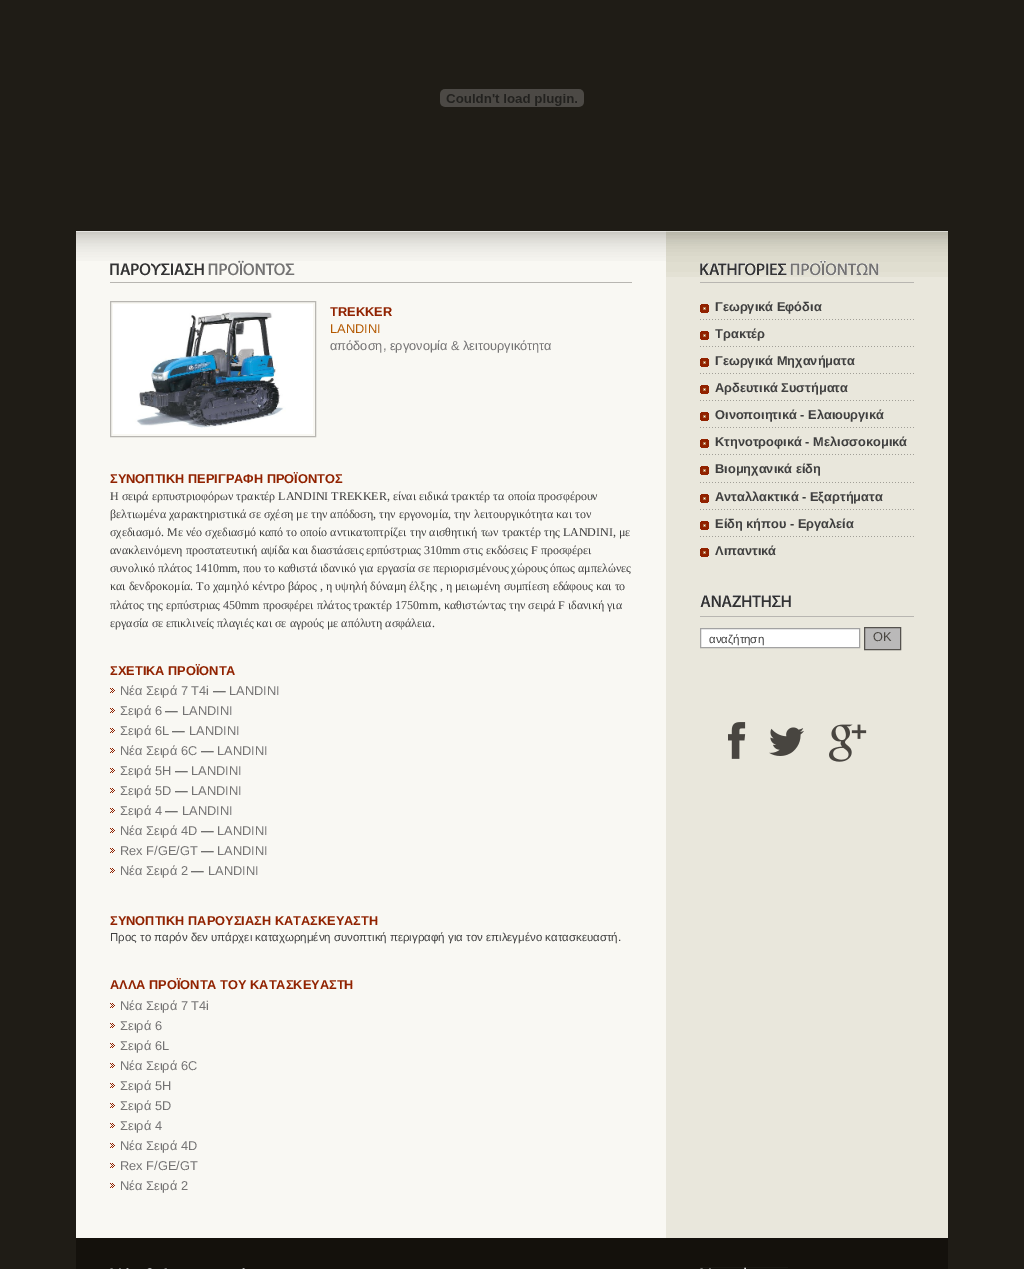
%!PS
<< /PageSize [1024 1269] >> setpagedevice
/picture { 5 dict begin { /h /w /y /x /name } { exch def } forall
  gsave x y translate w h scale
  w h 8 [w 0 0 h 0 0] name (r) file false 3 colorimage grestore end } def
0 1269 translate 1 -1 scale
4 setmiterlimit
0.122 0.11 0.086 setrgbcolor
0 0 1024 1269 rectfill
(img1.rgb) 440 89 144 18 picture
0.976 0.973 0.953 setrgbcolor
76 261 590 977 rectfill
(img2.rgb) 76 231 590 30 picture
0.722 0.714 0.694 setrgbcolor
110 282 522 1 rectfill
(img3.rgb) 110 260 185 16 picture
110.5 301.5 205 135 rectstroke
(img4.rgb) 113 304 200 130 picture
/LiberationSans-Bold [12.8 0 0 -12.8 0 0] selectfont
0.569 0.133 0 setrgbcolor
330 316 moveto (TREKKER) show
/LiberationSans-Regular [12.8 0 0 -12.8 0 0] selectfont
0.706 0.349 0 setrgbcolor
330 333 moveto (LANDINI) show
0.455 0.451 0.451 setrgbcolor
330 350 moveto (απόδοση, εργονομία & λειτουργικότητα) show
/LiberationSans-Bold [12.8 0 0 -12.8 0 0] selectfont
0.569 0.133 0 setrgbcolor
110 483 moveto (ΣΥΝΟΠΤΙΚΗ ΠΕΡΙΓΡΑΦΗ ΠΡΟΪΟΝΤΟΣ) show
/LiberationSerif-Regular [12 0 0 -12 0 0] selectfont
0.247 setgray
110 500 moveto (Η σειρά ερπυστριοφόρων τρακτέρ LANDINI TREKKER, είναι ειδικά τρακτέρ τα οποία προσφέρουν) show
110 518 moveto (βελτιωμένα χαρακτηριστικά σε σχέση με την απόδοση, την εργονομία, την λειτουργικότητα και τον) show
110 536 moveto (σχεδιασμό. Με νέο σχεδιασμό καπό το οποίο αντικατοπτρίζει την αισθητική των τρακτέρ της LANDINI, με) show
110 554 moveto (ανακλεινόμενη προστατευτική αψίδα και διαστάσεις ερπύστριας 310mm στις εκδόσεις F προσφέρει) show
110 572 moveto (συνολικό πλάτος 1410mm, που το καθιστά ιδανικό για εργασία σε περιορισμένους χώρους όπως αμπελώνες) show
110 590 moveto (και δενδροκομία. Το χαμηλό κέντρο βάρος , η υψηλή δύναμη έλξης , η μειωμένη συμπίεση εδάφους και το) show
110 609 moveto (πλάτος της ερπύστριας 450mm προσφέρει πλάτος τρακτέρ 1750mm, καθιστώντας την σειρά F ιδανική για) show
110 627 moveto (εργασία σε επικλινείς πλαγιές και σε αγρούς με απόλυτη ασφάλεια.) show
/LiberationSans-Bold [12.8 0 0 -12.8 0 0] selectfont
0.569 0.133 0 setrgbcolor
110 675 moveto (ΣΧΕΤΙΚΑ ΠΡΟΪΟΝΤΑ) show
(img5.rgb) 110 688 5 5 picture
/LiberationSans-Regular [12.8 0 0 -12.8 0 0] selectfont
0.455 0.451 0.451 setrgbcolor
120 695 moveto (Νέα Σειρά 7 T4i) show
0.247 setgray
213 695 moveto (—) show
0.455 0.451 0.451 setrgbcolor
229 695 moveto (LANDINI) show
(img5.rgb) 110 708 5 5 picture
120 715 moveto (Σειρά 6) show
0.247 setgray
165 715 moveto (—) show
0.455 0.451 0.451 setrgbcolor
182 715 moveto (LANDINI) show
(img5.rgb) 110 728 5 5 picture
120 735 moveto (Σειρά 6L) show
0.247 setgray
172 735 moveto (—) show
0.455 0.451 0.451 setrgbcolor
189 735 moveto (LANDINI) show
(img5.rgb) 110 748 5 5 picture
120 755 moveto (Νέα Σειρά 6C) show
0.247 setgray
201 755 moveto (—) show
0.455 0.451 0.451 setrgbcolor
217 755 moveto (LANDINI) show
(img5.rgb) 110 768 5 5 picture
120 775 moveto (Σειρά 5H) show
0.247 setgray
175 775 moveto (—) show
0.455 0.451 0.451 setrgbcolor
191 775 moveto (LANDINI) show
(img5.rgb) 110 788 5 5 picture
120 795 moveto (Σειρά 5D) show
0.247 setgray
175 795 moveto (—) show
0.455 0.451 0.451 setrgbcolor
191 795 moveto (LANDINI) show
(img5.rgb) 110 808 5 5 picture
120 815 moveto (Σειρά 4) show
0.247 setgray
165 815 moveto (—) show
0.455 0.451 0.451 setrgbcolor
182 815 moveto (LANDINI) show
(img5.rgb) 110 828 5 5 picture
120 835 moveto (Νέα Σειρά 4D) show
0.247 setgray
201 835 moveto (—) show
0.455 0.451 0.451 setrgbcolor
217 835 moveto (LANDINI) show
(img5.rgb) 110 848 5 5 picture
120 855 moveto (Rex F/GE/GT) show
0.247 setgray
201 855 moveto (—) show
0.455 0.451 0.451 setrgbcolor
217 855 moveto (LANDINI) show
(img5.rgb) 110 868 5 5 picture
120 875 moveto (Νέα Σειρά 2) show
0.247 setgray
191 875 moveto (—) show
0.455 0.451 0.451 setrgbcolor
208 875 moveto (LANDINI) show
/LiberationSans-Bold [12.8 0 0 -12.8 0 0] selectfont
0.569 0.133 0 setrgbcolor
110 925 moveto (ΣΥΝΟΠΤΙΚΗ ΠΑΡΟΥΣΙΑΣΗ ΚΑΤΑΣΚΕΥΑΣΤΗ) show
/LiberationSans-Regular [11.5 0 0 -11.5 0 0] selectfont
0.247 setgray
110 941 moveto (Προς το παρόν δεν υπάρχει καταχωρημένη συνοπτική περιγραφή για τον επιλεγμένο κατασκευαστή.) show
/LiberationSans-Bold [12.8 0 0 -12.8 0 0] selectfont
0.569 0.133 0 setrgbcolor
110 989 moveto (ΑΛΛΑ ΠΡΟΪΟΝΤΑ ΤΟΥ ΚΑΤΑΣΚΕΥΑΣΤΗ) show
(img5.rgb) 110 1003 5 5 picture
/LiberationSans-Regular [12.8 0 0 -12.8 0 0] selectfont
0.455 0.451 0.451 setrgbcolor
120 1010 moveto (Νέα Σειρά 7 T4i) show
(img5.rgb) 110 1023 5 5 picture
120 1030 moveto (Σειρά 6) show
(img5.rgb) 110 1043 5 5 picture
120 1050 moveto (Σειρά 6L) show
(img5.rgb) 110 1063 5 5 picture
120 1070 moveto (Νέα Σειρά 6C) show
(img5.rgb) 110 1083 5 5 picture
120 1090 moveto (Σειρά 5H) show
(img5.rgb) 110 1103 5 5 picture
120 1110 moveto (Σειρά 5D) show
(img5.rgb) 110 1123 5 5 picture
120 1130 moveto (Σειρά 4) show
(img5.rgb) 110 1143 5 5 picture
120 1150 moveto (Νέα Σειρά 4D) show
(img5.rgb) 110 1163 5 5 picture
120 1170 moveto (Rex F/GE/GT) show
(img5.rgb) 110 1183 5 5 picture
120 1190 moveto (Νέα Σειρά 2) show
0.914 0.906 0.863 setrgbcolor
666 277 282 961 rectfill
(img6.rgb) 666 231 282 46 picture
0.722 0.714 0.694 setrgbcolor
700 282 214 1 rectfill
(img7.rgb) 700 260 179 16 picture
(img8.rgb) 700 319 214 1 picture
(img9.rgb) 700 304 9 9 picture
/LiberationSans-Bold [12.8 0 0 -12.8 0 0] selectfont
0.247 setgray
715 311 moveto (Γεωργικά Εφόδια) show
(img8.rgb) 700 346 214 1 picture
(img9.rgb) 700 331 9 9 picture
715 338 moveto (Τρακτέρ) show
(img8.rgb) 700 373 214 1 picture
(img9.rgb) 700 358 9 9 picture
715 365 moveto (Γεωργικά Μηχανήματα) show
(img8.rgb) 700 400 214 1 picture
(img9.rgb) 700 385 9 9 picture
715 392 moveto (Αρδευτικά Συστήματα) show
(img8.rgb) 700 427 214 1 picture
(img9.rgb) 700 412 9 9 picture
715 419 moveto (Οινοποιητικά - Ελαιουργικά) show
(img8.rgb) 700 454 214 1 picture
(img9.rgb) 700 439 9 9 picture
715 446 moveto (Κτηνοτροφικά - Μελισσοκομικά) show
(img8.rgb) 700 482 214 1 picture
(img9.rgb) 700 466 9 9 picture
715 473 moveto (Βιομηχανικά είδη) show
(img8.rgb) 700 509 214 1 picture
(img9.rgb) 700 494 9 9 picture
715 501 moveto (Ανταλλακτικά - Εξαρτήματα) show
(img8.rgb) 700 536 214 1 picture
(img9.rgb) 700 521 9 9 picture
715 528 moveto (Είδη κήπου - Εργαλεία) show
(img9.rgb) 700 548 9 9 picture
715 555 moveto (Λιπαντικά) show
0.722 0.714 0.694 setrgbcolor
700 616 214 1 rectfill
(img10.rgb) 700 595 91 12 picture
1 setgray
newpath 700.5 628.5 moveto 859.5 628.5 lineto 859.5 647.5 lineto 700.5 647.5 lineto closepath gsave fill grestore
0.635 setgray
stroke
/LiberationSans-Regular [11.5 0 0 -11.5 0 0] selectfont
0.247 setgray
709 643 moveto (αναζήτηση) show
0.729 0.725 0.725 setrgbcolor
newpath 864.5 627.5 moveto 900.5 627.5 lineto 900.5 649.5 lineto 864.5 649.5 lineto closepath gsave fill grestore
0.333 0.322 0.306 setrgbcolor
stroke
/LiberationSans-Regular [12.8 0 0 -12.8 0 0] selectfont
0.282 0.271 0.251 setrgbcolor
873 641 moveto (OK) show
(img11.rgb) 728 722 18 37 picture
(img12.rgb) 769 727 35 29 picture
(img13.rgb) 829 724 38 38 picture
0.078 0.067 0.047 setrgbcolor
76 1238 872 31 rectfill
(img14.rgb) 110 1268 135 1 picture
(img15.rgb) 700 1267 88 2 picture
showpage
